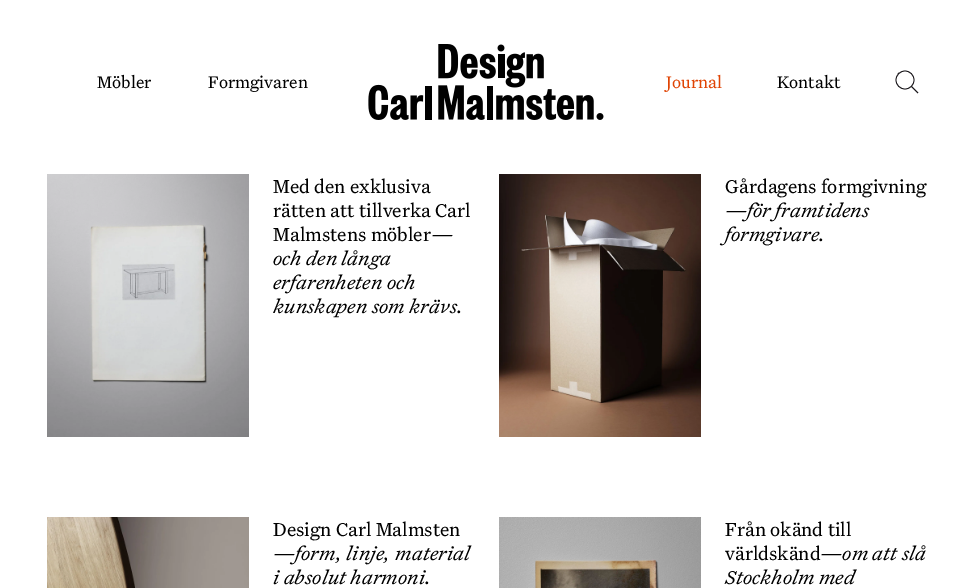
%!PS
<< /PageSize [974 588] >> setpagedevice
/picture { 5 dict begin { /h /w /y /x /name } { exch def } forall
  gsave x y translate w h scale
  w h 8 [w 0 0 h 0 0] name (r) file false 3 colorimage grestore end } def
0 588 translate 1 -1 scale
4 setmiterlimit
1 setgray
0 0 974 588 rectfill
/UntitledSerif-Regular [18 0 0 -18 0 0] selectfont
0 setgray
97 88 moveto (Möbler) show
208 88 moveto (Formgivaren) show
(img1.rgb) 368 44 236 76 picture
0.878 0.267 0.016 setrgbcolor
666 88 moveto (Journal) show
0 setgray
777 88 moveto (Kontakt) show
0.102 0.09 0.106 setrgbcolor
0.8 setlinewidth
newpath 918 93 moveto 898 73 lineto stroke
1 setgray
newpath 905 80 9 0 360 arc closepath gsave fill grestore
0.102 0.09 0.106 setrgbcolor
stroke
(img2.rgb) 47 174 202 263 picture
/UntitledSerif-Regular [20 0 0 -20 0 0] selectfont
0 setgray
273 193 moveto (Med den exklusiva) show
273 217 moveto (rätten att tillverka Carl) show
273 241 moveto (Malmstens möbler) show
/UntitledSerif-Italic [20 0 0 -20 0 0] selectfont
431 241 moveto (—) show
273 265 moveto (och den långa) show
273 289 moveto (erfarenheten och) show
273 313 moveto (kunskapen som krävs.) show
(img3.rgb) 499 174 202 263 picture
/UntitledSerif-Regular [20 0 0 -20 0 0] selectfont
725 193 moveto (Gårdagens formgivning) show
/UntitledSerif-Italic [20 0 0 -20 0 0] selectfont
725 217 moveto (—för framtidens) show
725 241 moveto (formgivare.) show
(img4.rgb) 47 517 202 71 picture
/UntitledSerif-Regular [20 0 0 -20 0 0] selectfont
273 536 moveto (Design Carl Malmsten) show
/UntitledSerif-Italic [20 0 0 -20 0 0] selectfont
273 560 moveto (—form, linje, material) show
273 584 moveto (i absolut harmoni.) show
(img5.rgb) 499 517 202 71 picture
/UntitledSerif-Regular [20 0 0 -20 0 0] selectfont
725 536 moveto (Från okänd till) show
725 560 moveto (världskänd) show
/UntitledSerif-Italic [20 0 0 -20 0 0] selectfont
820 560 moveto (—om att slå) show
725 584 moveto (Stockholm med) show
showpage
